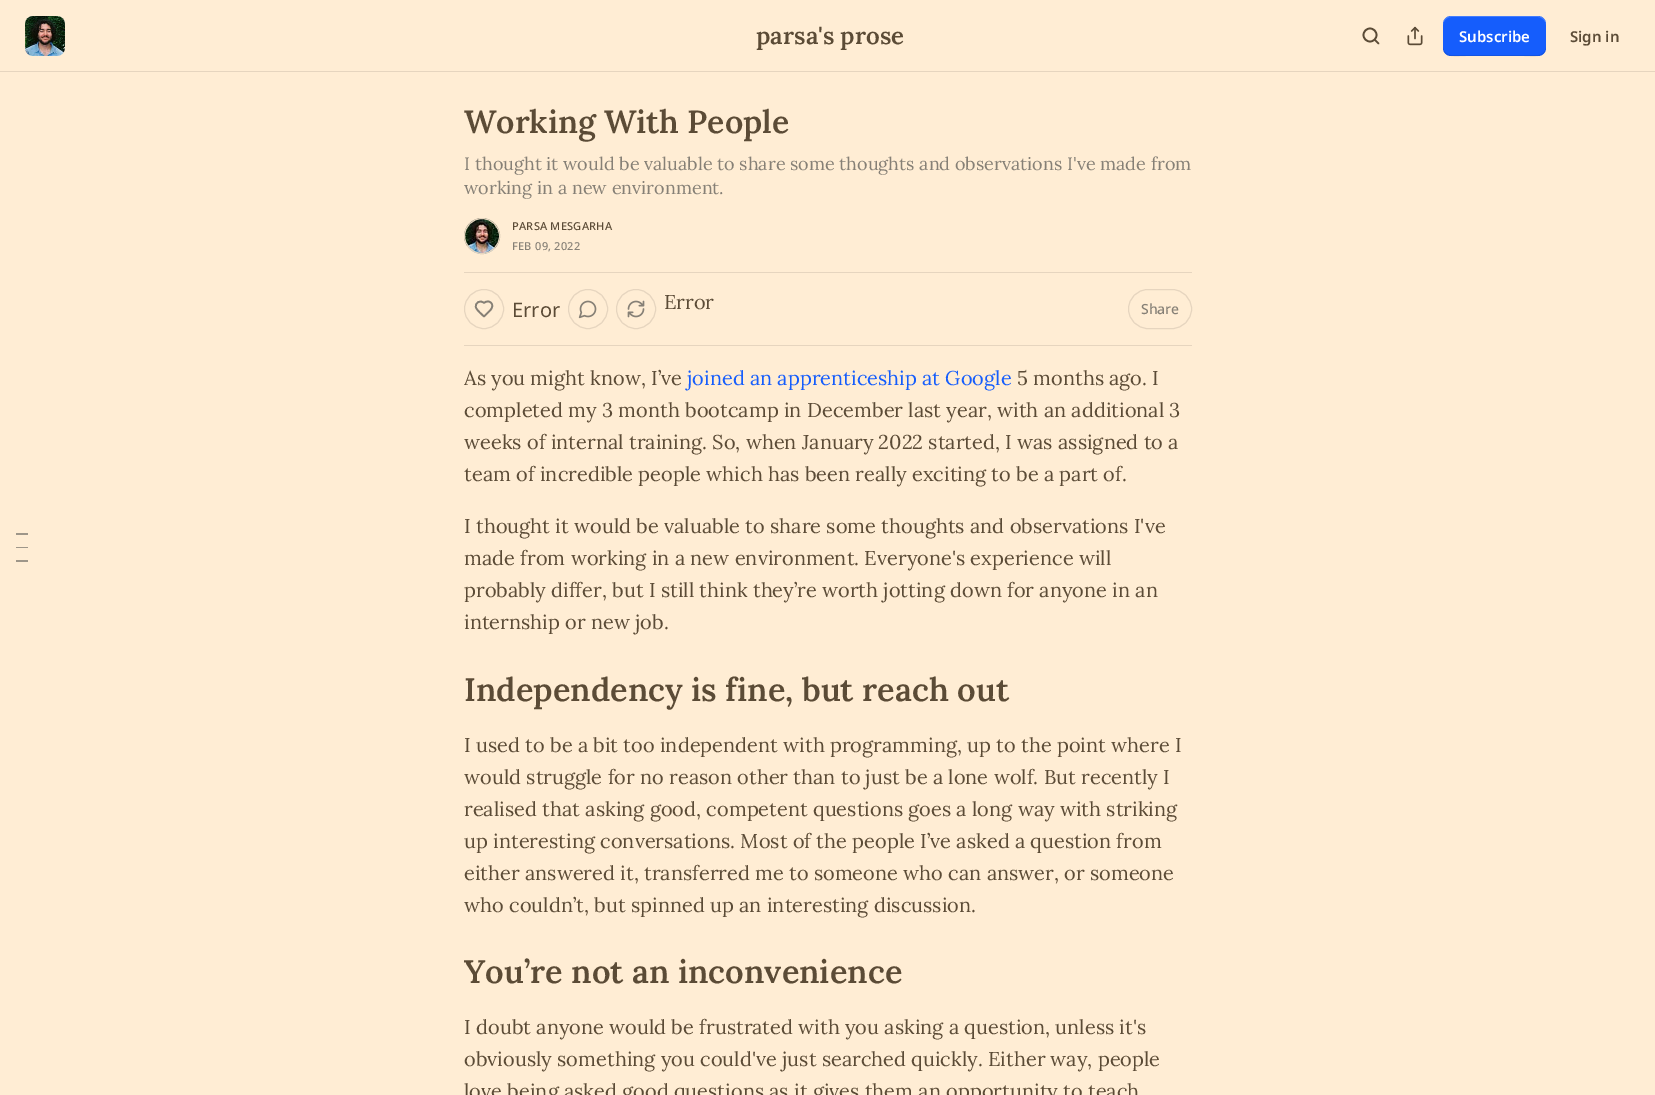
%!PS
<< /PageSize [1655 1095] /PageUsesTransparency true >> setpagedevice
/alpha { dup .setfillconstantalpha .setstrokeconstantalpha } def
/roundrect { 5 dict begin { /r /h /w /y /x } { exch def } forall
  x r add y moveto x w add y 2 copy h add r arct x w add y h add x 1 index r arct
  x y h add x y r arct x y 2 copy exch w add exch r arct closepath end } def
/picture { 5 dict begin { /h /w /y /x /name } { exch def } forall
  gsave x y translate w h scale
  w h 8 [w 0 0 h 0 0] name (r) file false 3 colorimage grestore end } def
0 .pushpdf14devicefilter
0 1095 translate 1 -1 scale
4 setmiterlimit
1 0.929 0.831 setrgbcolor
0 0 1655 1095 rectfill
0.902 0.835 0.749 setrgbcolor
0 71 1655 1 rectfill
1 setgray
25 16 40 40 8 roundrect fill
(img1.rgb) 25 16 40 40 picture
/Lora-SemiBold [24 0 0 -24 0 0] selectfont
0.357 0.294 0.212 setrgbcolor
756 44 moveto (parsa's prose) show
1.7 setlinewidth
newpath 1370 35 6.5 0 360 arc closepath stroke
1 setlinecap
1 setlinejoin
newpath 1378.5 43.5 moveto 1375 40 lineto stroke
(img2.rgb) 1407 26 16 20 picture
0.082 0.365 0.988 setrgbcolor
1443 16 103 40 8 roundrect fill
0.1 alpha
0 setgray
newpath 1443 47 moveto 1443 59 1457 56 1466 56 curveto 1524 56 lineto 1532 56 1546 59 1546 47 curveto 1546 51 1542 55 1538 55 curveto 1451 55 lineto 1447 55 1443 51 1443 47 curveto closepath fill
0.2 alpha
1 setgray
newpath 1451 17 moveto 1538 17 lineto 1542 17 1546 21 1546 25 curveto 1546 13 1532 16 1524 16 curveto 1466 16 lineto 1457 16 1443 13 1443 25 curveto 1443 21 1447 17 1451 17 curveto closepath fill
/NotoSans-SemiBold [15 0 0 -15 0 0] selectfont
1 alpha
1459 42 moveto (Subscribe) show
0.357 0.294 0.212 setrgbcolor
1570 42 moveto (Sign in) show
/Lora-SemiBold [32 0 0 -32 0 0] selectfont
464 133 moveto (Working With People) show
/Lora-Regular [18 0 0 -18 0 0] selectfont
0.525 0.502 0.463 setrgbcolor
464 170 moveto (I thought it would be valuable to share some thoughts and observations I've made from) show
464 194 moveto (working in a new environment.) show
0.902 0.835 0.749 setrgbcolor
1 setlinewidth
0 setlinecap
0 setlinejoin
newpath 482 236 17.5 0 360 arc closepath stroke
(img3.rgb) 464 218 36 36 picture
newpath 482 236 17.5 0 360 arc closepath stroke
/NotoSans-Medium [11 0 0 -11 0 0] selectfont
0.357 0.294 0.212 setrgbcolor
512 230 moveto 0.25 0 (PARSA MESGARHA) ashow
0.525 0.502 0.463 setrgbcolor
512 250 moveto 0.25 0 (FEB 09, 2022) ashow
0.902 0.835 0.749 setrgbcolor
464 272 728 1 rectfill
464 345 728 1 rectfill
newpath 484 309 19.5 0 360 arc closepath stroke
0.525 0.502 0.463 setrgbcolor
1.7 setlinewidth
1 setlinecap
1 setlinejoin
newpath 490 310.5 moveto 496 304.5 489 298.5 484 303 curveto 480.5 299.5 474.5 302.5 476 307.5 curveto 477 310.5 482 314.5 484 316.5 curveto closepath stroke
/NotoSans-Regular [20 0 0 -20 0 0] selectfont
0.357 0.294 0.212 setrgbcolor
512 317 moveto (Error) show
0.902 0.835 0.749 setrgbcolor
1 setlinewidth
0 setlinecap
0 setlinejoin
newpath 588 309 19.5 0 360 arc closepath stroke
(img4.rgb) 578 300 19 19 picture
newpath 636 309 19.5 0 360 arc closepath stroke
(img5.rgb) 627 300 18 18 picture
/Lora-Regular [20 0 0 -20 0 0] selectfont
0.357 0.294 0.212 setrgbcolor
664 309 moveto (Error) show
0.902 0.835 0.749 setrgbcolor
1128.5 289.5 63 39 19.5 roundrect stroke
/NotoSans-Medium [14 0 0 -14 0 0] selectfont
0.525 0.502 0.463 setrgbcolor
1141 314 moveto (Share) show
0.62 0.588 0.537 setrgbcolor
16 533 12 2 rectfill
16 547 12 1 rectfill
16 560 12 2 rectfill
/Lora-Regular [20 0 0 -20 0 0] selectfont
0.357 0.294 0.212 setrgbcolor
464 385 moveto (As you might know, I’ve) show
0.082 0.365 0.988 setrgbcolor
687 385 moveto (joined an apprenticeship at Google) show
0.357 0.294 0.212 setrgbcolor
1017 385 moveto (5 months ago. I) show
464 417 moveto (completed my 3 month bootcamp in December last year, with an additional 3) show
464 449 moveto (weeks of internal training. So, when January 2022 started, I was assigned to a) show
464 481 moveto (team of incredible people which has been really exciting to be a part of.) show
464 533 moveto (I thought it would be valuable to share some thoughts and observations I've) show
464 565 moveto (made from working in a new environment. Everyone's experience will) show
464 597 moveto (probably differ, but I still think they’re worth jotting down for anyone in an) show
464 629 moveto (internship or new job.) show
/Lora-SemiBold [32.5 0 0 -32.5 0 0] selectfont
464 701 moveto (Independency is fine, but reach out) show
/Lora-Regular [20 0 0 -20 0 0] selectfont
464 752 moveto (I used to be a bit too independent with programming, up to the point where I) show
464 784 moveto (would struggle for no reason other than to just be a lone wolf. But recently I) show
464 816 moveto (realised that asking good, competent questions goes a long way with striking) show
464 848 moveto (up interesting conversations. Most of the people I’ve asked a question from) show
464 880 moveto (either answered it, transferred me to someone who can answer, or someone) show
464 912 moveto (who couldn’t, but spinned up an interesting discussion.) show
/Lora-SemiBold [32.5 0 0 -32.5 0 0] selectfont
464 983 moveto (You’re not an inconvenience) show
/Lora-Regular [20 0 0 -20 0 0] selectfont
464 1034 moveto (I doubt anyone would be frustrated with you asking a question, unless it's) show
464 1066 moveto (obviously something you could've just searched quickly. Either way, people) show
464 1098 moveto (love being asked good questions as it gives them an opportunity to teach) show
.poppdf14devicefilter showpage
